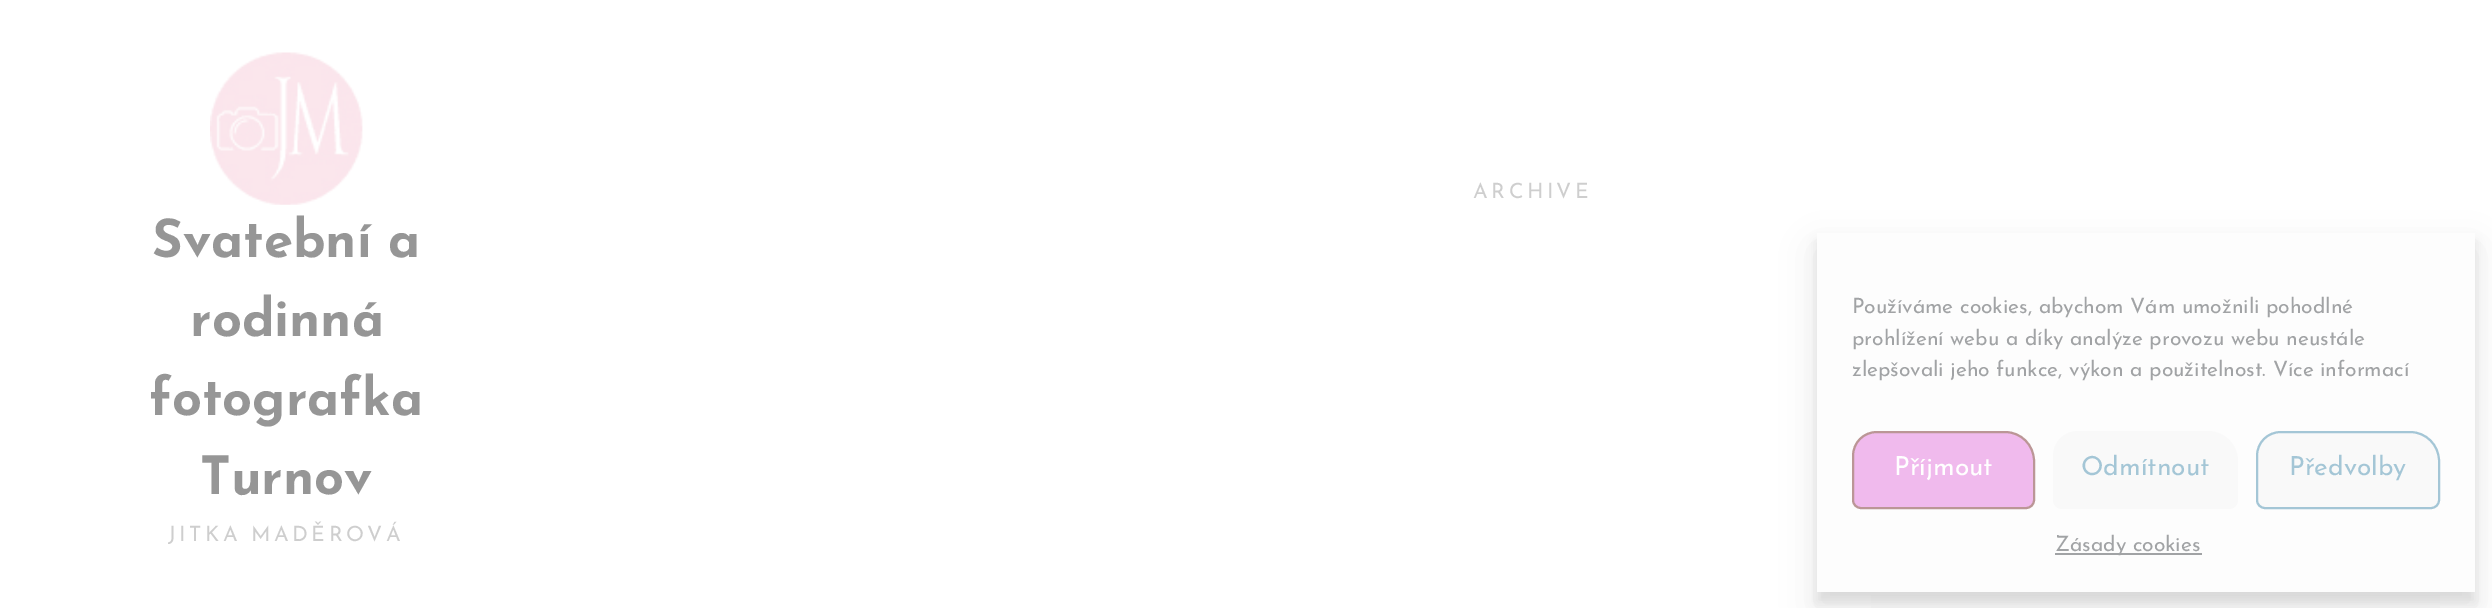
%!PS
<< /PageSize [2492 608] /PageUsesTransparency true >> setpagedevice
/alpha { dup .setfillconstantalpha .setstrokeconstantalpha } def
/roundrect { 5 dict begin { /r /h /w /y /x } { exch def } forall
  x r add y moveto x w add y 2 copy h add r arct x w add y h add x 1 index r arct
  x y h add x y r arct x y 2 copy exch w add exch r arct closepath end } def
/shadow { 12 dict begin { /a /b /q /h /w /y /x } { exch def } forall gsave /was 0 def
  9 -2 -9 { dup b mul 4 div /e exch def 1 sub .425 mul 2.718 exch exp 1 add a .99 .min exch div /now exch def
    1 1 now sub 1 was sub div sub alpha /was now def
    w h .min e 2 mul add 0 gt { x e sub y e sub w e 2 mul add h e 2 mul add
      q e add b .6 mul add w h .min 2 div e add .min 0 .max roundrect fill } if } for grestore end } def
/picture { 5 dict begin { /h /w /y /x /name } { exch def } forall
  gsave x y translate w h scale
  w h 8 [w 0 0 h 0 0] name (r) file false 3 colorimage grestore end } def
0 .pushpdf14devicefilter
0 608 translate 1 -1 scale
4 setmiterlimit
1 setgray
0 0 2492 608 rectfill
/JosefinSans-Regular [21 0 0 -21 0 0] selectfont
0.808 setgray
1473 198 moveto 3.5 0 (ARCHIVE) ashow
0.988 setgray
1871 595 569 13 rectfill
(img1.rgb) 210 52 153 153 picture
/JosefinSans-Bold [52.5 0 0 -52.5 0 0] selectfont
0.588 setgray
152 257 moveto (Svatební a) show
190 336 moveto (rodinná) show
149 415 moveto (fotografka) show
200 494 moveto (Turnov) show
/JosefinSans-Regular [21 0 0 -21 0 0] selectfont
0.808 setgray
168 541 moveto 3.5 0 (JITKA MADĚROVÁ) ashow
0.588 setgray
1817 242 658 360 0 5 0.23 shadow
1817 249 658 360 0 17.5 0.19 shadow
0.992 setgray
1817 233 658 359 rectfill
0.631 0.639 0.647 setrgbcolor
1852 313 moveto (Používáme cookies, abychom Vám umožnili pohodlné) show
1852 345 moveto (prohlížení webu a díky analýze provozu webu neustále) show
1852 376 moveto (zlepšovali jeho funkce, výkon a použitelnost. Více informací) show
0.941 0.729 0.929 setrgbcolor
newpath 1877 432 moveto 2005 432 lineto 2021 432 2034 445 2034 461 curveto 2034 500 lineto 2034 504.5 2030.5 508 2026 508 curveto 1861 508 lineto 1856.5 508 1853 504.5 1853 500 curveto 1853 456 lineto 1853 442.5 1863.5 432 1877 432 curveto closepath gsave fill grestore
0.733 0.588 0.588 setrgbcolor
2 setlinewidth
stroke
/JosefinSans-Regular [26.25 0 0 -26.25 0 0] selectfont
1 setgray
1894 475 moveto (Příjmout) show
0.976 setgray
newpath 2078 431 moveto 2208 431 lineto 2224.5 431 2238 444.5 2238 461 curveto 2238 500 lineto 2238 505 2234 509 2229 509 curveto 2062 509 lineto 2057 509 2053 505 2053 500 curveto 2053 456 lineto 2053 442 2064 431 2078 431 curveto closepath fill
0.643 0.776 0.839 setrgbcolor
2081 475 moveto (Odmítnout) show
0.976 setgray
newpath 2281 432 moveto 2410 432 lineto 2426 432 2439 445 2439 461 curveto 2439 500 lineto 2439 504.5 2435.5 508 2431 508 curveto 2265 508 lineto 2260.5 508 2257 504.5 2257 500 curveto 2257 456 lineto 2257 442.5 2267.5 432 2281 432 curveto closepath gsave fill grestore
0.643 0.776 0.839 setrgbcolor
stroke
2289 475 moveto (Předvolby) show
0.631 0.639 0.647 setrgbcolor
2055 553 147 2 rectfill
/JosefinSans-Regular [21 0 0 -21 0 0] selectfont
2055 551 moveto (Zásady cookies) show
.poppdf14devicefilter showpage
